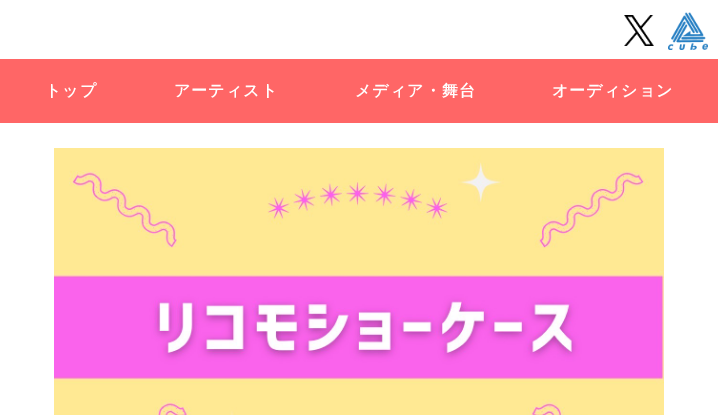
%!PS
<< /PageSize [718 415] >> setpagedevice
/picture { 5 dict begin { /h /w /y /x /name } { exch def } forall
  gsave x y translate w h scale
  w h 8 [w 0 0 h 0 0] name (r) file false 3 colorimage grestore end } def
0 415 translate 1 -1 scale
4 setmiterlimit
1 setgray
0 0 718 415 rectfill
(img1.rgb) 624 15 30 31 picture
(img2.rgb) 668 12 40 38 picture
1 0.4 0.4 setrgbcolor
0 59 718 64 rectfill
/WenQuanYiZenHei-Bold [16 0 0 -16 0 0] selectfont
1 setgray
45 96 moveto 1 0 (トップ) ashow
174 96 moveto 1 0 (アーティスト) ashow
355 96 moveto 1 0 (メディア・舞台) ashow
552 96 moveto 1 0 (オーディション) ashow
(img3.rgb) 54 148 610 267 picture
showpage
